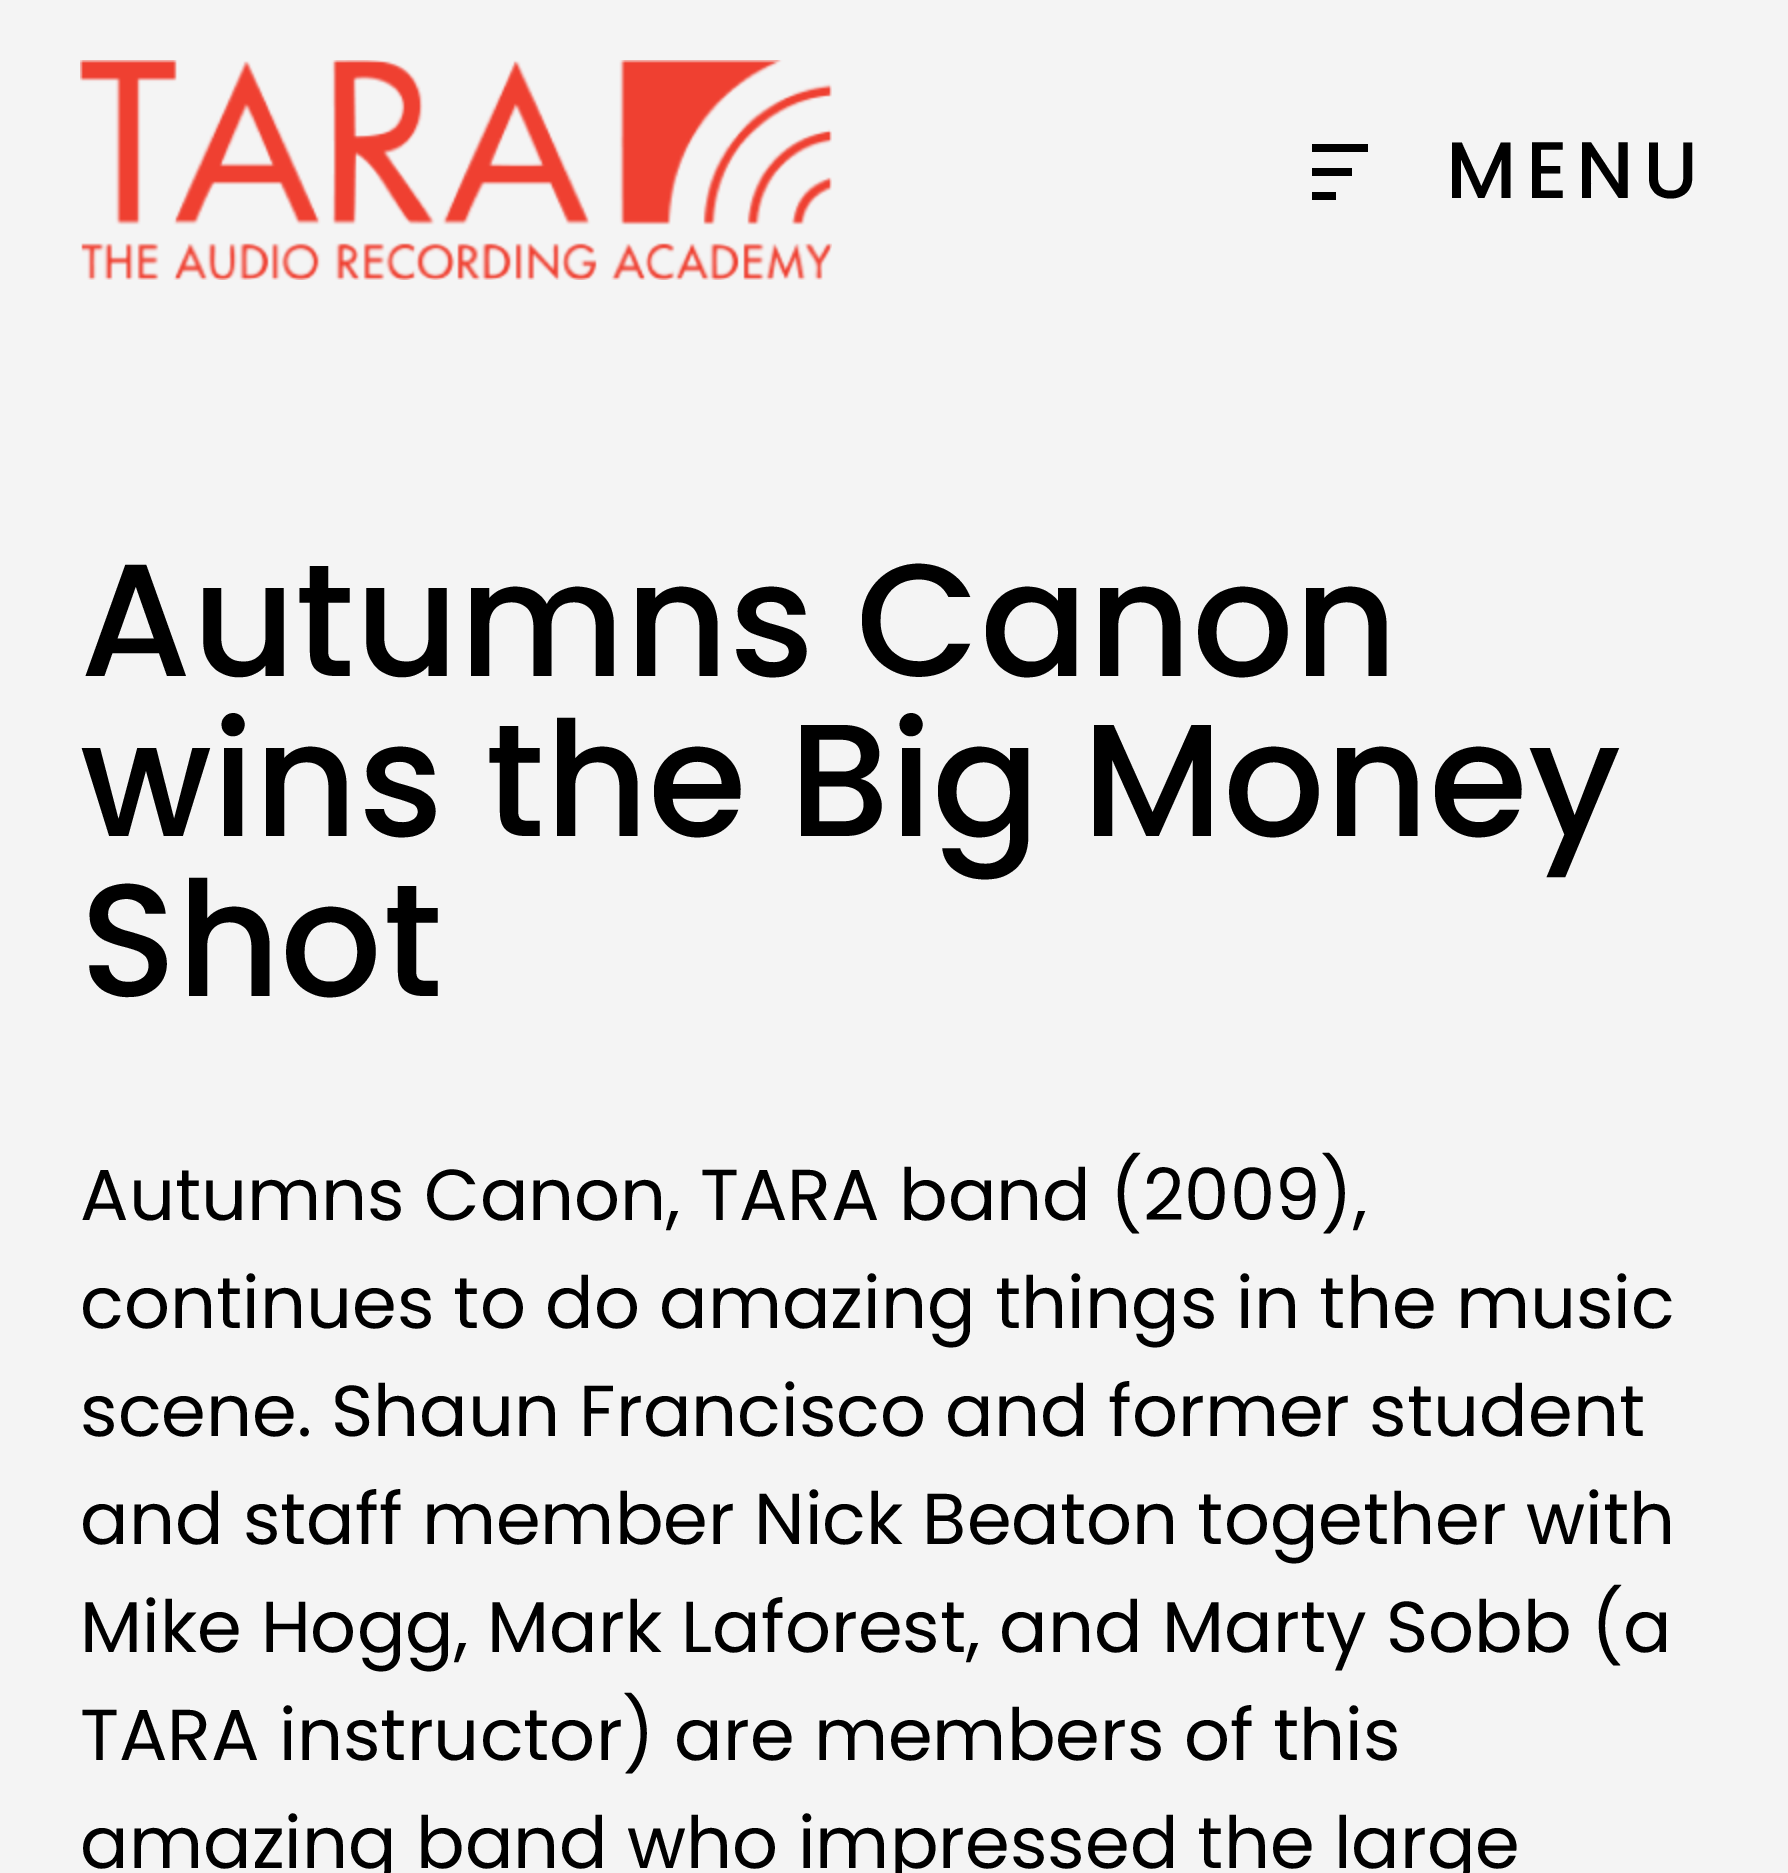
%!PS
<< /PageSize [1788 1873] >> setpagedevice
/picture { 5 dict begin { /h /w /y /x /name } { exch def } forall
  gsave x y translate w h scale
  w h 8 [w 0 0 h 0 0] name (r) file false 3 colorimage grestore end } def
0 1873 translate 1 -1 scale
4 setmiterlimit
0.957 setgray
0 0 1788 1873 rectfill
(img1.rgb) 80 60 752 220 picture
0 setgray
1312 144 56 8 rectfill
1312 168 40 8 rectfill
1312 192 24 8 rectfill
/Poppins-Medium [80 0 0 -80 0 0] selectfont
1446 198 moveto 9 0 (MENU) ashow
/Poppins-Medium [160 0 0 -160 0 0] selectfont
80 676 moveto (Autumns Canon) show
80 836 moveto (wins the Big Money) show
80 996 moveto (Shot) show
/Poppins-Regular [72 0 0 -72 0 0] selectfont
80 1220 moveto (Autumns Canon, TARA band \(2009\),) show
80 1328 moveto (continues to do amazing things in the music) show
80 1436 moveto (scene. Shaun Francisco and former student) show
80 1544 moveto (and staff member Nick Beaton together with) show
80 1652 moveto (Mike Hogg, Mark Laforest, and Marty Sobb \(a) show
80 1760 moveto (TARA instructor\) are members of this) show
80 1868 moveto (amazing band who impressed the large) show
showpage
